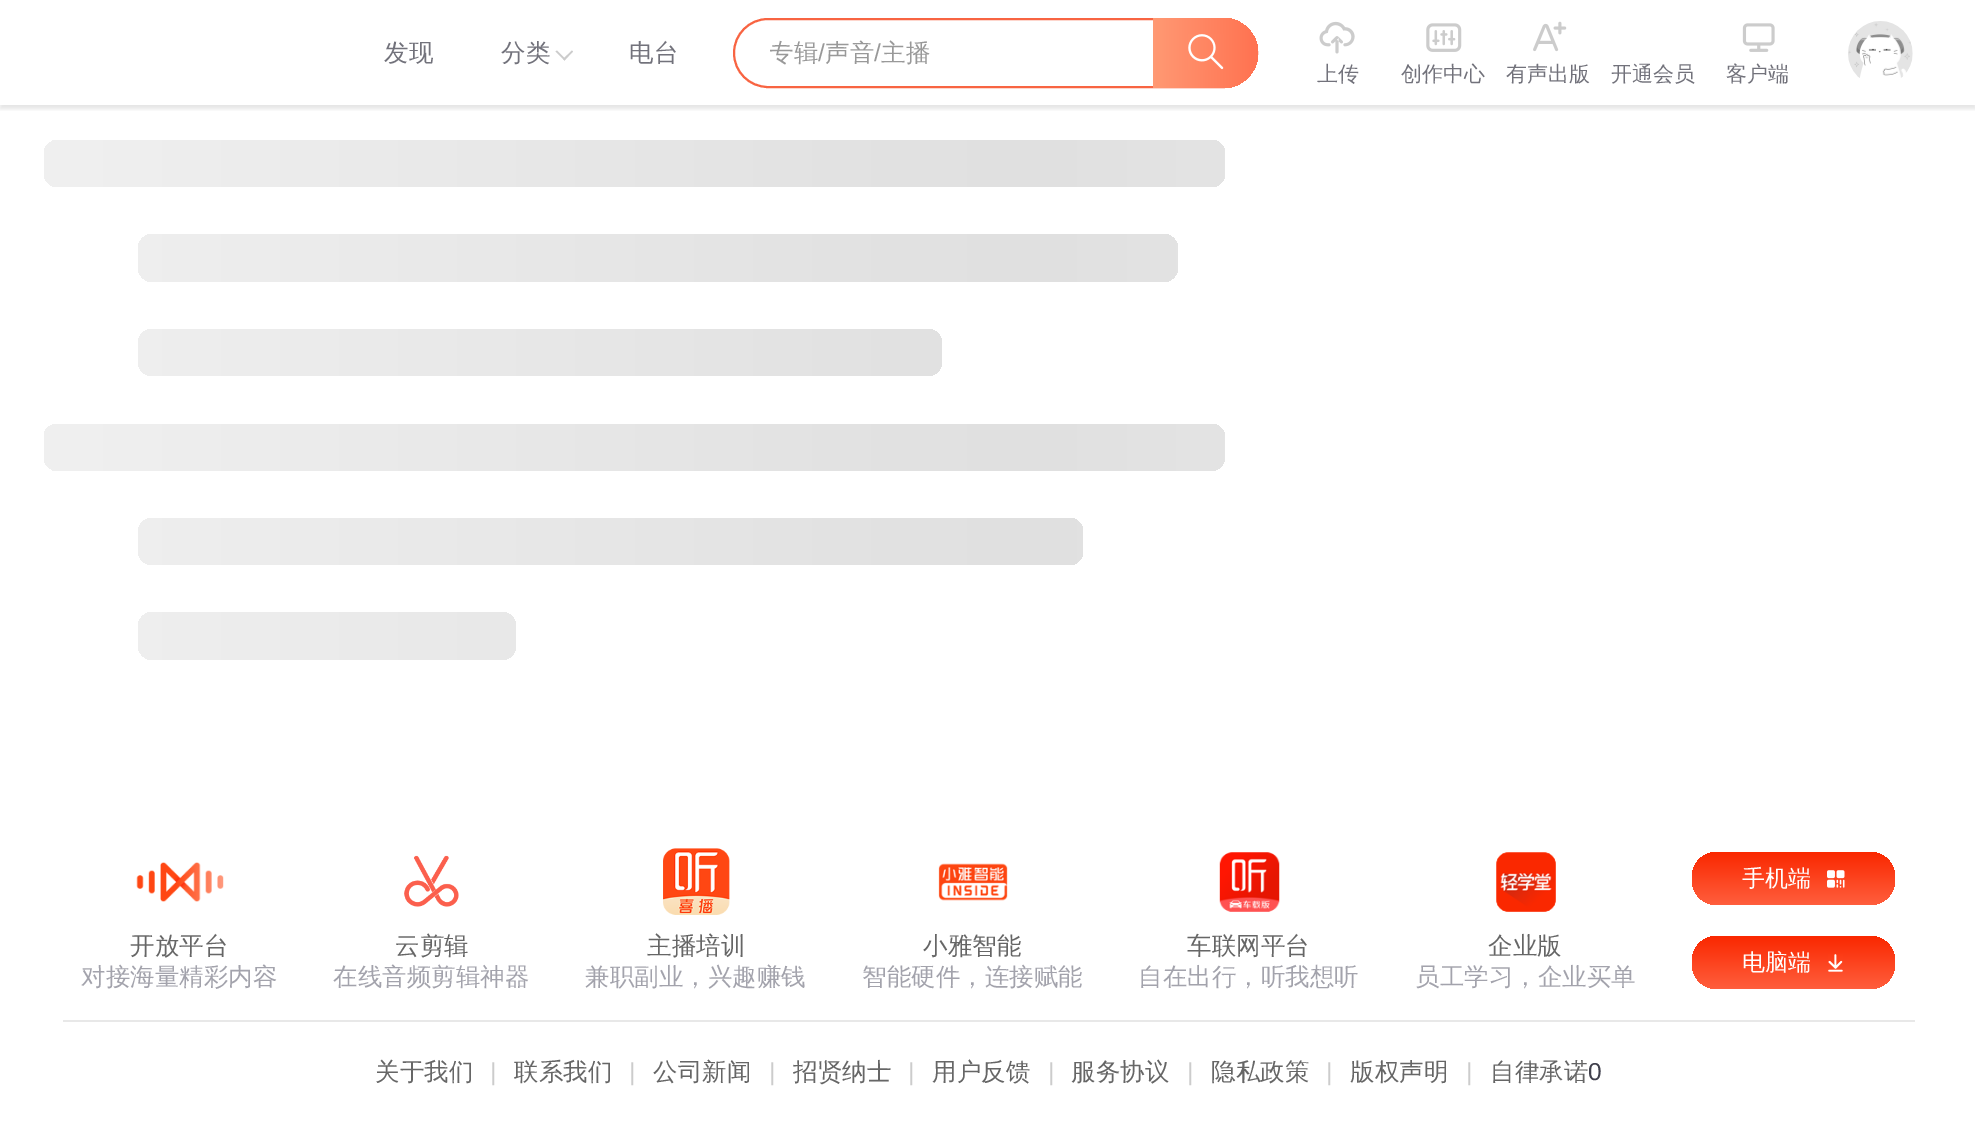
%!PS
<< /PageSize [1975 1123] /PageUsesTransparency true >> setpagedevice
/alpha { dup .setfillconstantalpha .setstrokeconstantalpha } def
/roundrect { 5 dict begin { /r /h /w /y /x } { exch def } forall
  x r add y moveto x w add y 2 copy h add r arct x w add y h add x 1 index r arct
  x y h add x y r arct x y 2 copy exch w add exch r arct closepath end } def
/shadow { 12 dict begin { /a /b /q /h /w /y /x } { exch def } forall gsave /was 0 def
  9 -2 -9 { dup b mul 4 div /e exch def 1 sub .425 mul 2.718 exch exp 1 add a .99 .min exch div /now exch def
    1 1 now sub 1 was sub div sub alpha /was now def
    w h .min e 2 mul add 0 gt { x e sub y e sub w e 2 mul add h e 2 mul add
      q e add b .6 mul add w h .min 2 div e add .min 0 .max roundrect fill } if } for grestore end } def
/picture { 5 dict begin { /h /w /y /x /name } { exch def } forall
  gsave x y translate w h scale
  w h 8 [w 0 0 h 0 0] name (r) file false 3 colorimage grestore end } def
0 .pushpdf14devicefilter
0 1123 translate 1 -1 scale
4 setmiterlimit
1 setgray
0 0 1975 1123 rectfill
gsave
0 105 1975 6 rectclip
0 setgray
0 4 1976 105 0 2 0.1 shadow
grestore
/WenQuanYiZenHei-Medium [24.5 0 0 -24.5 0 0] selectfont
0.447 0.447 0.482 setrgbcolor
384 61 moveto (发现) show
501 61 moveto (分类) show
0.8 setgray
newpath 573 51.5 moveto 564.5 60.5 lineto 563 59 lineto 572 50.5 lineto closepath fill
newpath 565.5 59 moveto 564.5 60.5 lineto 555.5 51.5 lineto 557 50.5 lineto closepath fill
0.447 0.447 0.482 setrgbcolor
629 61 moveto (电台) show
0.973 0.392 0.259 setrgbcolor
2 setlinewidth
734 19 523 68 34 roundrect stroke
gsave
770 39 364 31 rectclip
0.6 setgray
769 61 moveto (专辑) show
grestore
/LiberationSans-Regular [24.5 0 0 -24.5 0 0] selectfont
0.6 setgray
818 61 moveto (/) show
/WenQuanYiZenHei-Medium [24.5 0 0 -24.5 0 0] selectfont
825 61 moveto (声音) show
/LiberationSans-Regular [24.5 0 0 -24.5 0 0] selectfont
874 61 moveto (/) show
/WenQuanYiZenHei-Medium [24.5 0 0 -24.5 0 0] selectfont
881 61 moveto (主播) show
gsave newpath 1153 18 moveto 1223 18 lineto 1242.5 18 1258 33.5 1258 53 curveto 1258 72.5 1242.5 88 1223 88 curveto 1153 88 lineto closepath clip newpath
<< /ShadingType 2 /ColorSpace /DeviceRGB /Coords [1153 53 1258 53] /Extend [true true] /Function << /FunctionType 3 /Domain [0 1] /Functions [<< /FunctionType 2 /Domain [0 1] /C0 [1 0.6 0.451] /C1 [1 0.6 0.451] /N 1 >> << /FunctionType 2 /Domain [0 1] /C0 [1 0.6 0.451] /C1 [1 0.447 0.318] /N 1 >> << /FunctionType 2 /Domain [0 1] /C0 [1 0.447 0.318] /C1 [1 0.447 0.318] /N 1 >>] /Bounds [0.01 0.99] /Encode [0 1 0 1 0 1] >> >> shfill grestore
(img1.rgb) 1188 34 36 36 picture
(img2.rgb) 1319 21 36 33 picture
/WenQuanYiZenHei-Medium [21 0 0 -21 0 0] selectfont
0.447 0.447 0.482 setrgbcolor
1317 81 moveto (上传) show
(img3.rgb) 1426 23 36 29 picture
1401 81 moveto (创作中心) show
(img4.rgb) 1533 21 34 31 picture
1506 81 moveto (有声出版) show
1611 81 moveto (开通会员) show
(img5.rgb) 1742 23 33 29 picture
1726 81 moveto (客户端) show
(img6.rgb) 1848 21 65 57 picture
gsave newpath 58 140 moveto 51 140 45 145 44 152 curveto 44 176 lineto 45 182 51 187 58 187 curveto 1211 187 lineto 1219 187 1225 181 1225 173 curveto 1225 154 lineto 1225 146 1219 140 1211 140 curveto closepath 58 424 moveto 1211 424 lineto 1219 424 1225 430 1225 438 curveto 1225 457 lineto 1225 464 1219 471 1211 471 curveto 58 471 lineto 51 471 45 466 44 459 curveto 44 435 lineto 45 428 51 424 58 424 curveto closepath 152 234 moveto 145 234 138 241 138 249 curveto 138 268 lineto 138 275 145 282 152 282 curveto 1164 282 lineto 1171 282 1178 275 1178 268 curveto 1178 249 lineto 1178 241 1171 234 1164 234 curveto closepath 152 329 moveto 145 329 138 335 138 343 curveto 138 362 lineto 138 370 145 376 152 376 curveto 927 376 lineto 935 376 942 370 942 362 curveto 942 343 lineto 942 335 935 329 927 329 curveto closepath 152 518 moveto 145 518 138 524 138 532 curveto 138 551 lineto 138 559 145 565 152 565 curveto 1069 565 lineto 1077 565 1083 559 1083 551 curveto 1083 532 lineto 1083 524 1077 518 1069 518 curveto closepath 152 612 moveto 145 612 138 619 138 627 curveto 138 646 lineto 138 653 145 660 152 660 curveto 502 660 lineto 510 660 516 653 516 646 curveto 516 627 lineto 516 619 510 612 502 612 curveto closepath eoclip newpath
<< /ShadingType 2 /ColorSpace /DeviceRGB /Coords [44 140 1934 140] /Extend [true true] /Function << /FunctionType 3 /Domain [0 1] /Functions [<< /FunctionType 2 /Domain [0 1] /C0 [0.941 0.941 0.941] /C1 [0.878 0.878 0.878] /N 1 >> << /FunctionType 2 /Domain [0 1] /C0 [0.878 0.878 0.878] /C1 [0.941 0.941 0.941] /N 1 >>] /Bounds [0.5] /Encode [0 1 0 1] >> >> shfill grestore
0.91 setgray
63 1020 1852 2 rectfill
(img7.rgb) 136 862 88 40 picture
/WenQuanYiZenHei-Medium [24.5 0 0 -24.5 0 0] selectfont
0.4 setgray
130 954 moveto (开放平台) show
0.639 0.639 0.675 setrgbcolor
81 985 moveto (对接海量精彩内容) show
(img8.rgb) 404 855 55 52 picture
0.4 setgray
395 954 moveto (云剪辑) show
0.639 0.639 0.675 setrgbcolor
333 985 moveto (在线音频剪辑神器) show
(img9.rgb) 663 848 67 67 picture
0.4 setgray
647 954 moveto (主播培训) show
0.639 0.639 0.675 setrgbcolor
585 985 moveto (兼职副业，兴趣赚钱) show
(img10.rgb) 938 863 70 38 picture
0.4 setgray
923 954 moveto (小雅智能) show
0.639 0.639 0.675 setrgbcolor
862 985 moveto (智能硬件，连接赋能) show
(img11.rgb) 1219 852 61 60 picture
0.4 setgray
1187 954 moveto (车联网平台) show
0.639 0.639 0.675 setrgbcolor
1138 985 moveto (自在出行，听我想听) show
(img12.rgb) 1496 852 60 60 picture
0.4 setgray
1488 954 moveto (企业版) show
0.639 0.639 0.675 setrgbcolor
1415 985 moveto (员工学习，企业买单) show
gsave 1692 852 203 53 25 roundrect clip newpath
<< /ShadingType 2 /ColorSpace /DeviceRGB /Coords [1794 852 1794 905] /Extend [true true] /Function << /FunctionType 2 /Domain [0 1] /C0 [0.98 0.157 0] /C1 [1 0.369 0.239] /N 1 >> >> shfill grestore
/WenQuanYiZenHei-Medium [23 0 0 -23 0 0] selectfont
1 setgray
1742 886 moveto (手机端) show
(img13.rgb) 1827 870 18 18 picture
gsave 1692 936 203 53 25 roundrect clip newpath
<< /ShadingType 2 /ColorSpace /DeviceRGB /Coords [1794 936 1794 989] /Extend [true true] /Function << /FunctionType 2 /Domain [0 1] /C0 [0.98 0.157 0] /C1 [1 0.369 0.239] /N 1 >> >> shfill grestore
1742 970 moveto (电脑端) show
(img14.rgb) 1828 954 15 18 picture
/WenQuanYiZenHei-Medium [24.5 0 0 -24.5 0 0] selectfont
0.4 setgray
375 1080 moveto (关于我们) show
/LiberationSans-Regular [24.5 0 0 -24.5 0 0] selectfont
0.8 setgray
490 1080 moveto (|) show
/WenQuanYiZenHei-Medium [24.5 0 0 -24.5 0 0] selectfont
0.4 setgray
514 1080 moveto (联系我们) show
/LiberationSans-Regular [24.5 0 0 -24.5 0 0] selectfont
0.8 setgray
629 1080 moveto (|) show
/WenQuanYiZenHei-Medium [24.5 0 0 -24.5 0 0] selectfont
0.4 setgray
653 1080 moveto (公司新闻) show
/LiberationSans-Regular [24.5 0 0 -24.5 0 0] selectfont
0.8 setgray
769 1080 moveto (|) show
/WenQuanYiZenHei-Medium [24.5 0 0 -24.5 0 0] selectfont
0.4 setgray
793 1080 moveto (招贤纳士) show
/LiberationSans-Regular [24.5 0 0 -24.5 0 0] selectfont
0.8 setgray
908 1080 moveto (|) show
/WenQuanYiZenHei-Medium [24.5 0 0 -24.5 0 0] selectfont
0.4 setgray
932 1080 moveto (用户反馈) show
/LiberationSans-Regular [24.5 0 0 -24.5 0 0] selectfont
0.8 setgray
1048 1080 moveto (|) show
/WenQuanYiZenHei-Medium [24.5 0 0 -24.5 0 0] selectfont
0.4 setgray
1071 1080 moveto (服务协议) show
/LiberationSans-Regular [24.5 0 0 -24.5 0 0] selectfont
0.8 setgray
1187 1080 moveto (|) show
/WenQuanYiZenHei-Medium [24.5 0 0 -24.5 0 0] selectfont
0.4 setgray
1211 1080 moveto (隐私政策) show
/LiberationSans-Regular [24.5 0 0 -24.5 0 0] selectfont
0.8 setgray
1326 1080 moveto (|) show
/WenQuanYiZenHei-Medium [24.5 0 0 -24.5 0 0] selectfont
0.4 setgray
1350 1080 moveto (版权声明) show
/LiberationSans-Regular [24.5 0 0 -24.5 0 0] selectfont
0.8 setgray
1466 1080 moveto (|) show
/WenQuanYiZenHei-Medium [24.5 0 0 -24.5 0 0] selectfont
0.4 setgray
1490 1080 moveto (自律承诺) show
/LiberationSans-Regular [24.5 0 0 -24.5 0 0] selectfont
0.251 0.251 0.298 setrgbcolor
1588 1080 moveto (0) show
.poppdf14devicefilter showpage
